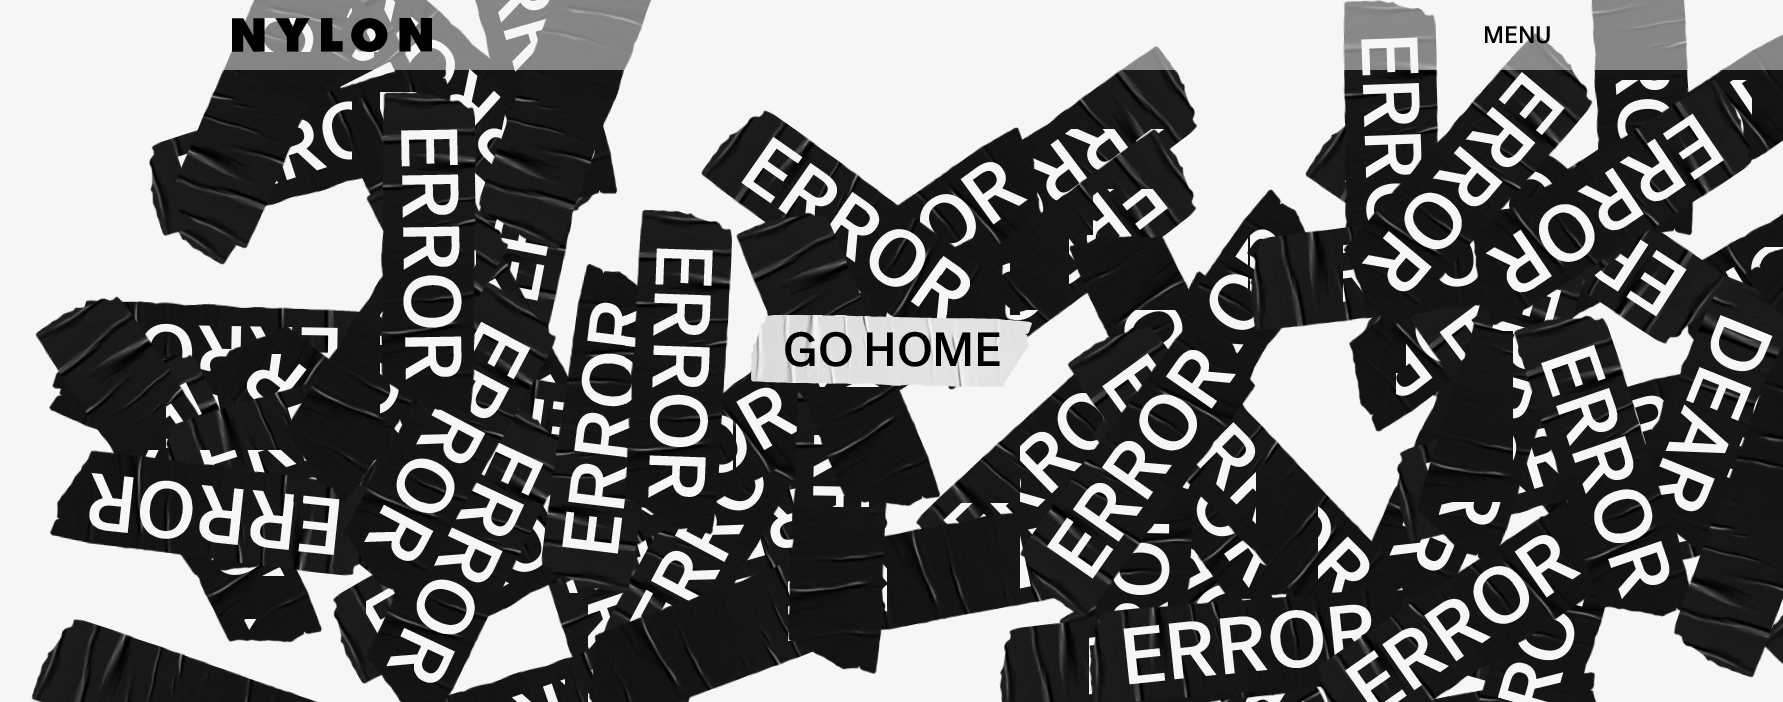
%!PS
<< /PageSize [1783 702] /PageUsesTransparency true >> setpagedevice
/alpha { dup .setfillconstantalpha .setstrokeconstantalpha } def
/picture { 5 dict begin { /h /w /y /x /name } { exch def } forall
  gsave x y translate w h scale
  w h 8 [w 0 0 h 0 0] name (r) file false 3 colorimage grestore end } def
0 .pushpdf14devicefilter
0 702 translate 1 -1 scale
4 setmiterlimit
0.965 setgray
0 0 1783 702 rectfill
(img19.rgb) 478 182 95 147 picture
(img5.rgb) 379 0 220 212 picture
(img4.rgb) 330 0 150 212 picture
(img2.rgb) 154 0 220 265 picture
(img22.rgb) 366 186 203 200 picture
(img10.rgb) 149 62 303 175 picture
(img3.rgb) 175 0 177 249 picture
(img6.rgb) 474 0 144 198 picture
(img7.rgb) 478 0 174 250 picture
(img17.rgb) 1305 124 295 196 picture
(img13.rgb) 1567 34 216 138 picture
(img27.rgb) 1687 213 96 128 picture
(img39.rgb) 1353 315 87 83 picture
(img21.rgb) 1436 143 291 201 picture
(img8.rgb) 1343 0 96 228 picture
(img9.rgb) 1591 0 103 236 picture
(img11.rgb) 1020 45 178 169 picture
(img15.rgb) 767 127 275 189 picture
(img34.rgb) 1188 271 72 110 picture
(img51.rgb) 916 373 189 157 picture
(img16.rgb) 947 129 250 261 picture
(img23.rgb) 1093 189 214 257 picture
(img30.rgb) 1069 235 179 177 picture
(img80.rgb) 1430 671 167 31 picture
(img72.rgb) 1270 574 222 107 picture
(img74.rgb) 1059 599 152 103 picture
(img69.rgb) 1187 543 139 159 picture
(img44.rgb) 1067 326 227 276 picture
(img58.rgb) 1371 379 96 221 picture
(img57.rgb) 1186 404 220 193 picture
(img31.rgb) 1349 248 272 184 picture
(img40.rgb) 1406 304 163 210 picture
(img66.rgb) 1671 528 31 33 picture
(img52.rgb) 1396 373 286 170 picture
(img65.rgb) 1478 516 128 186 picture
(img35.rgb) 1417 273 166 287 picture
(img62.rgb) 1094 486 98 134 picture
(img61.rgb) 635 474 253 107 picture
(img64.rgb) 880 503 177 128 picture
(img48.rgb) 1020 310 236 308 picture
(img26.rgb) 1250 207 294 124 picture
(img12.rgb) 1343 32 250 297 picture
0.5 alpha
223 0 1560 70 rectfill
1 alpha
(img1.rgb) 232 18 200 34 picture
/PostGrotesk-Medium [24 0 0 -24 0 0] selectfont
0 setgray
1483 43 moveto (MENU) show
/PostGrotesk-Medium [80 0 0 -80 0 0] selectfont
0.965 setgray
gsave 1526 67 translate 130 rotate 0 0 moveto -0.5 0 (ERROR) ashow grestore
(img36.rgb) 52 300 309 90 picture
(img47.rgb) 49 350 269 131 picture
(img42.rgb) 207 325 179 163 picture
(img49.rgb) 161 354 161 289 picture
(img33.rgb) 35 296 225 280 picture
(img53.rgb) 166 381 227 98 picture
(img29.rgb) 726 233 282 158 picture
(img68.rgb) 547 552 93 106 picture
(img50.rgb) 604 369 193 264 picture
(img55.rgb) 554 376 245 209 picture
(img54.rgb) 381 378 186 72 picture
(img67.rgb) 358 556 16 20 picture
(img78.rgb) 445 648 245 54 picture
(img63.rgb) 333 487 232 198 picture
(img59.rgb) 50 450 319 126 picture
(img60.rgb) 366 408 194 294 picture
gsave 495 434 translate 115 rotate 0 0 moveto -0.5 0 (ERROR) ashow grestore
(img37.rgb) 343 282 214 319 picture
gsave 484 316 translate 118 rotate 0 0 moveto -0.5 0 (ERROR) ashow grestore
gsave 346 500 translate -174 rotate 0 0 moveto -0.5 0 (ERROR) ashow grestore
(img24.rgb) 286 206 223 296 picture
(img14.rgb) 380 92 96 321 picture
gsave 401 124 translate 89 rotate 0 0 moveto -0.5 0 (ERROR) ashow grestore
(img41.rgb) 1645 276 138 277 picture
(img32.rgb) 1745 247 38 65 picture
gsave 1723 309 translate 112 rotate 0 0 moveto -0.5 0 (DEAR) ashow grestore
(img18.rgb) 1473 80 279 246 picture
gsave 1698 110 translate 146 rotate 0 0 moveto -0.5 0 (ERROR) ashow grestore
(img20.rgb) 701 110 309 209 picture
gsave 736 179 translate 35 rotate 0 0 moveto -0.5 0 (ERROR) ashow grestore
(img71.rgb) 588 560 298 142 picture
(img56.rgb) 788 388 99 286 picture
(img25.rgb) 736 212 205 295 picture
(img38.rgb) 541 263 102 330 picture
gsave 617 560 translate -83 rotate 0 0 moveto -0.5 0 (ERROR) ashow grestore
(img28.rgb) 625 209 108 326 picture
gsave 657 242 translate 92 rotate 0 0 moveto -0.5 0 (ERROR) ashow grestore
(img43.rgb) 751 315 281 72 picture
/PostGrotesk-Medium [48 0 0 -48 0 0] selectfont
0 setgray
783 366 moveto -0.5 0 (GO HOME) ashow
(img79.rgb) 999 618 295 84 picture
(img75.rgb) 1089 589 316 113 picture
/PostGrotesk-Medium [80 0 0 -80 0 0] selectfont
0.965 setgray
gsave 1123 685 translate -6 rotate 0 0 moveto -0.5 0 (ERROR) ashow grestore
(img70.rgb) 1318 502 275 200 picture
gsave 1372 720 translate -35 rotate 0 0 moveto -0.5 0 (ERROR) ashow grestore
(img45.rgb) 1513 315 177 302 picture
gsave 1539 357 translate 71 rotate 0 0 moveto -0.5 0 (ERROR) ashow grestore
(img73.rgb) 1782 598 1 1 picture
(img76.rgb) 1765 615 18 49 picture
(img46.rgb) 1673 348 110 330 picture
gsave 1089 584 translate -55 rotate 0 0 moveto -0.5 0 (ERROR) ashow grestore
(img77.rgb) 31 619 287 83 picture
.poppdf14devicefilter showpage
